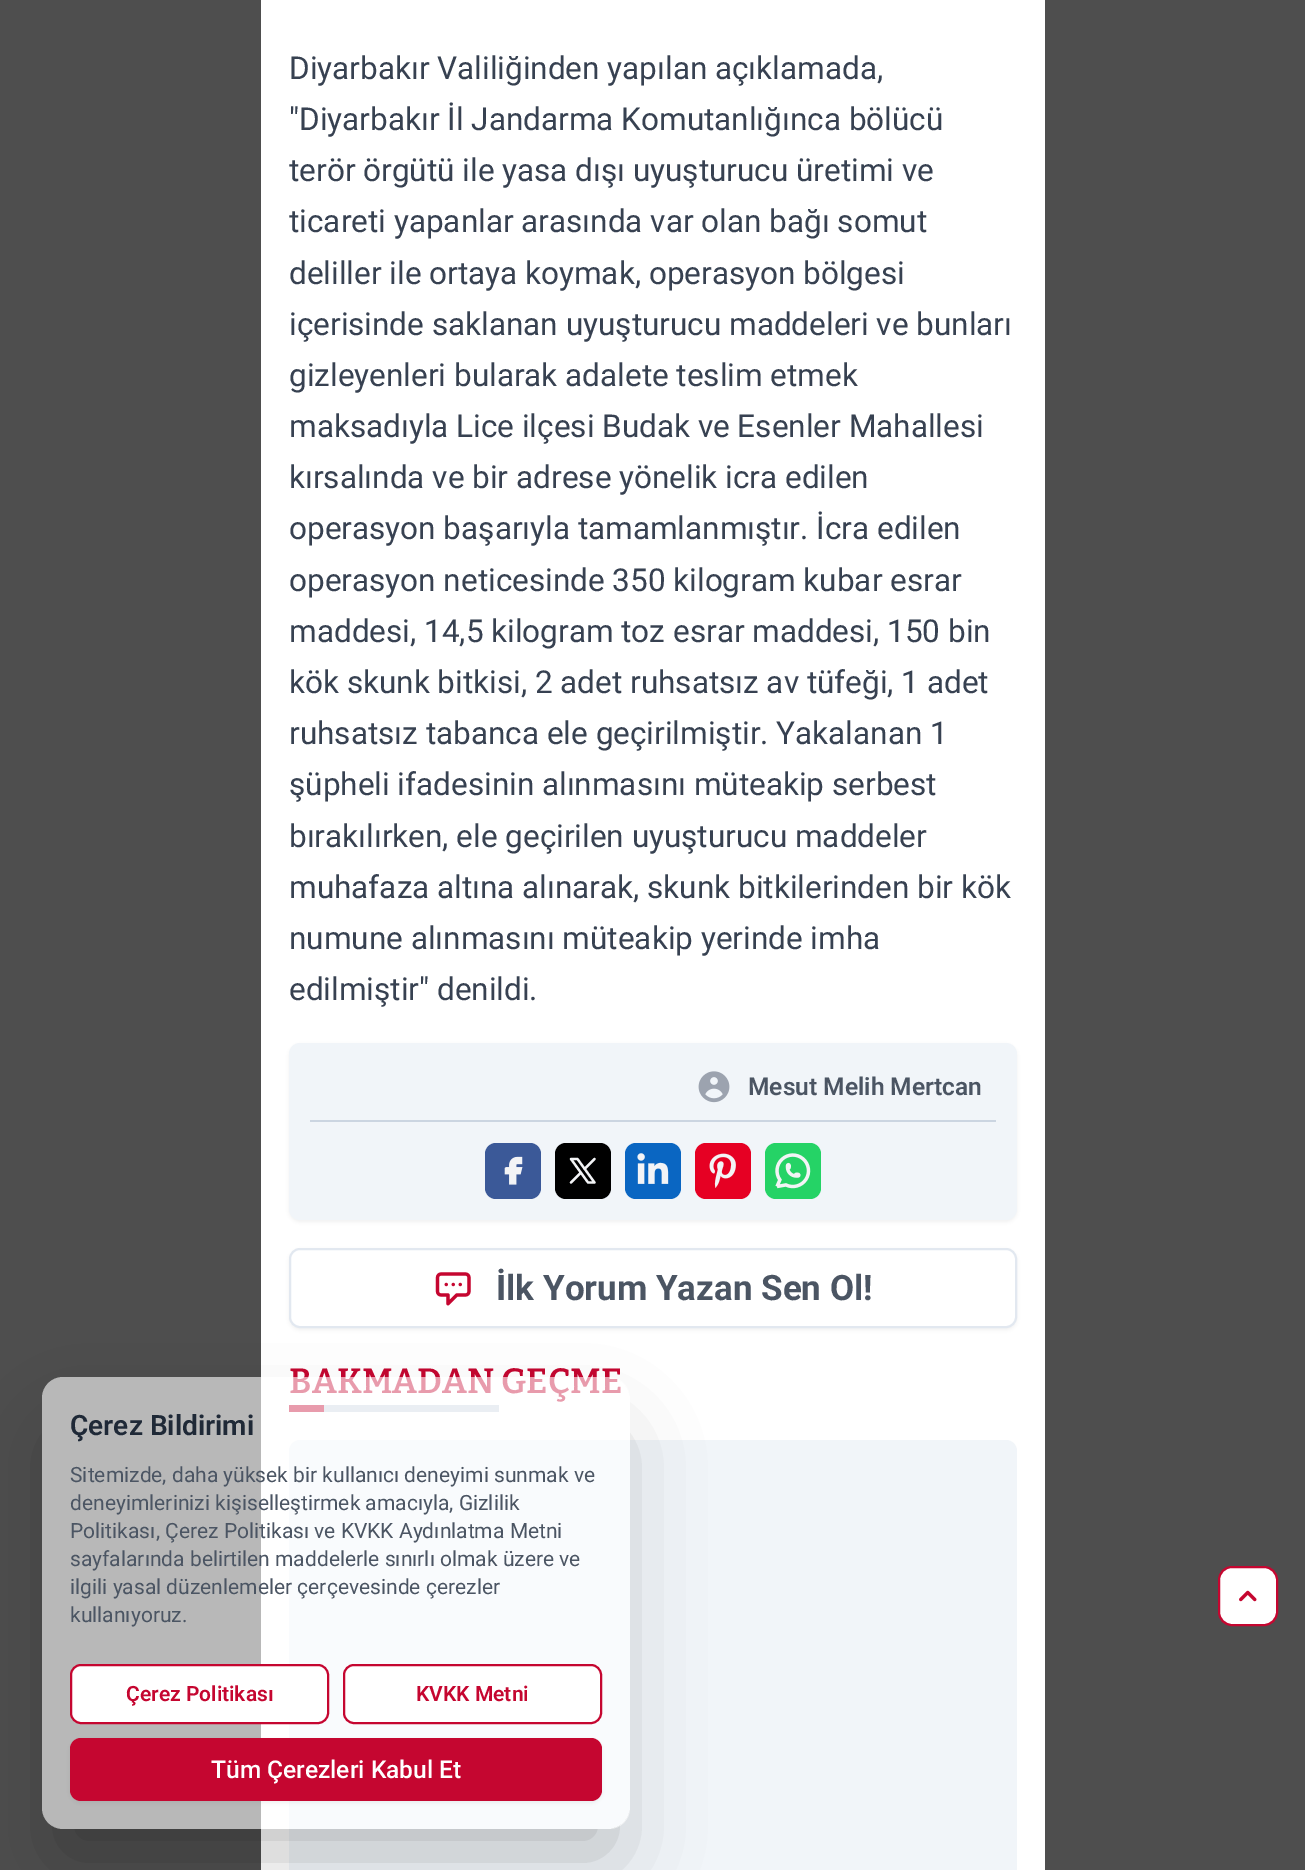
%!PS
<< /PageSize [1305 1870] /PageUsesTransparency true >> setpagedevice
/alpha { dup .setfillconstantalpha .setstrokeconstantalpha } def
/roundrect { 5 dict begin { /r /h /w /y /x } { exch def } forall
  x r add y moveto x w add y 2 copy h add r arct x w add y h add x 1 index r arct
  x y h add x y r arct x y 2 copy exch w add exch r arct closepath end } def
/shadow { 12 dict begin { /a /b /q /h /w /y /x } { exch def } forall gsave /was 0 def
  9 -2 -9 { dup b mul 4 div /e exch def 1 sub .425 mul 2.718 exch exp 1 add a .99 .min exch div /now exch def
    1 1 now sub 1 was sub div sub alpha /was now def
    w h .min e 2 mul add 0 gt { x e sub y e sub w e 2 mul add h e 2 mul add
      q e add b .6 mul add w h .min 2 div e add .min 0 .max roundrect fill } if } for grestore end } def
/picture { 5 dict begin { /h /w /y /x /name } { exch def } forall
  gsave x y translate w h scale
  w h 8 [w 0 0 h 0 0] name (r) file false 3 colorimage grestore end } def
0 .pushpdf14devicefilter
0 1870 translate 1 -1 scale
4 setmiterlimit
0.306 setgray
0 0 1305 1870 rectfill
1 setgray
261 0 784 1870 rectfill
/Roboto-Regular [31.5 0 0 -31.5 0 0] selectfont
0.216 0.255 0.318 setrgbcolor
289 79 moveto (Diyarbakır Valiliğinden yapılan açıklamada,) show
289 130 moveto ("Diyarbakır İl Jandarma Komutanlığınca bölücü) show
289 181 moveto (terör örgütü ile yasa dışı uyuşturucu üretimi ve) show
289 232 moveto (ticareti yapanlar arasında var olan bağı somut) show
289 284 moveto (deliller ile ortaya koymak, operasyon bölgesi) show
289 335 moveto (içerisinde saklanan uyuşturucu maddeleri ve bunları) show
289 386 moveto (gizleyenleri bularak adalete teslim etmek) show
289 437 moveto (maksadıyla Lice ilçesi Budak ve Esenler Mahallesi) show
289 488 moveto (kırsalında ve bir adrese yönelik icra edilen) show
289 539 moveto (operasyon başarıyla tamamlanmıştır. İcra edilen) show
289 591 moveto (operasyon neticesinde 350 kilogram kubar esrar) show
289 642 moveto (maddesi, 14,5 kilogram toz esrar maddesi, 150 bin) show
289 693 moveto (kök skunk bitkisi, 2 adet ruhsatsız av tüfeği, 1 adet) show
289 744 moveto (ruhsatsız tabanca ele geçirilmiştir. Yakalanan 1) show
289 795 moveto (şüpheli ifadesinin alınmasını müteakip serbest) show
289 847 moveto (bırakılırken, ele geçirilen uyuşturucu maddeler) show
289 898 moveto (muhafaza altına alınarak, skunk bitkilerinden bir kök) show
289 949 moveto (numune alınmasını müteakip yerinde imha) show
289 1000 moveto (edilmiştir" denildi.) show
0 setgray
289 1045 728 177 11 2 0.05 shadow
0.945 0.961 0.976 setrgbcolor
289 1043 728 177 11 roundrect fill
0.796 0.835 0.882 setrgbcolor
310 1120 686 2 rectfill
(img1.rgb) 698 1071 32 32 picture
/Roboto-SemiBold [24.5 0 0 -24.5 0 0] selectfont
0.294 0.333 0.388 setrgbcolor
748 1095 moveto (Mesut Melih Mertcan) show
0.231 0.349 0.596 setrgbcolor
485 1143 56 56 11 roundrect fill
(img2.rgb) 504 1156 19 29 picture
0 setgray
555 1143 56 56 11 roundrect fill
0.953 0.957 0.965 setrgbcolor
2.2 setlinewidth
1 setlinecap
1 setlinejoin
newpath 571 1159 moveto 588 1182.5 lineto 594.5 1182.5 lineto 577.5 1159 lineto closepath 571 1182.5 moveto 581 1172.5 lineto 584.5 1169 moveto 594.5 1159 lineto stroke
0.039 0.4 0.761 setrgbcolor
625 1143 56 56 11 roundrect fill
(img3.rgb) 637 1153 32 31 picture
0.902 0 0.137 setrgbcolor
695 1143 56 56 11 roundrect fill
(img4.rgb) 709 1153 27 35 picture
0.145 0.827 0.4 setrgbcolor
765 1143 56 56 11 roundrect fill
(img5.rgb) 775 1153 36 36 picture
0 setgray
289 1250 728 80 11 2 0.05 shadow
1 setgray
290 1249 726 78 10 roundrect gsave fill grestore
0.886 0.91 0.941 setrgbcolor
2 setlinewidth
0 setlinecap
0 setlinejoin
stroke
(img6.rgb) 435 1272 36 34 picture
/Roboto-Bold [35 0 0 -35 0 0] selectfont
0.294 0.333 0.388 setrgbcolor
496 1300 moveto (İlk Yorum Yazan Sen Ol!) show
/Bitter-Thin [35 0 0 -35 0 0] selectfont
0.773 0.024 0.188 setrgbcolor
289 1393 moveto (BAKMADAN GEÇME) show
289 1405 35 7 rectfill
0.796 0.835 0.882 setrgbcolor
324 1405 175 7 rectfill
0.945 0.961 0.976 setrgbcolor
289 1440 728 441 11 roundrect fill
gsave
newpath 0 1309 moveto 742 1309 lineto 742 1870 lineto 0 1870 lineto closepath 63 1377 moveto 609 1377 lineto 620.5 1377 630 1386.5 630 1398 curveto 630 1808 lineto 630 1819.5 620.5 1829 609 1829 curveto 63 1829 lineto 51.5 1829 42 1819.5 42 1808 curveto 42 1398 lineto 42 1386.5 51.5 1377 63 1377 curveto closepath eoclip newpath
0 setgray
63 1442 546 410 0 44 0.25 shadow
grestore
0.6 alpha
1 setgray
42 1377 588 452 21 roundrect fill
/Roboto-SemiBold [28 0 0 -28 0 0] selectfont
1 alpha
0.122 0.161 0.216 setrgbcolor
70 1435 moveto (Çerez Bildirimi) show
/Roboto-Regular [21 0 0 -21 0 0] selectfont
0.294 0.333 0.388 setrgbcolor
70 1482 moveto (Sitemizde, daha yüksek bir kullanıcı deneyimi sunmak ve) show
70 1510 moveto (deneyimlerinizi kişiselleştirmek amacıyla, Gizlilik) show
70 1538 moveto (Politikası, Çerez Politikası ve KVKK Aydınlatma Metni) show
70 1566 moveto (sayfalarında belirtilen maddelerle sınırlı olmak üzere ve) show
70 1594 moveto (ilgili yasal düzenlemeler çerçevesinde çerezler) show
70 1622 moveto (kullanıyoruz.) show
1 setgray
71 1665 257 58 10 roundrect gsave fill grestore
0.773 0.024 0.188 setrgbcolor
stroke
/Roboto-SemiBold [21 0 0 -21 0 0] selectfont
126 1701 moveto (Çerez Politikası) show
1 setgray
344 1665 257 58 10 roundrect gsave fill grestore
0.773 0.024 0.188 setrgbcolor
stroke
416 1701 moveto (KVKK Metni) show
0 setgray
70 1740 532 63 11 2 0.05 shadow
0.773 0.024 0.188 setrgbcolor
70 1738 532 63 11 roundrect fill
/Roboto-Medium [24.5 0 0 -24.5 0 0] selectfont
1 setgray
211 1778 moveto (Tüm Çerezleri Kabul Et) show
1219 1567 58 58 13 roundrect gsave fill grestore
0.773 0.024 0.188 setrgbcolor
stroke
(img7.rgb) 1239 1590 18 12 picture
.poppdf14devicefilter showpage
